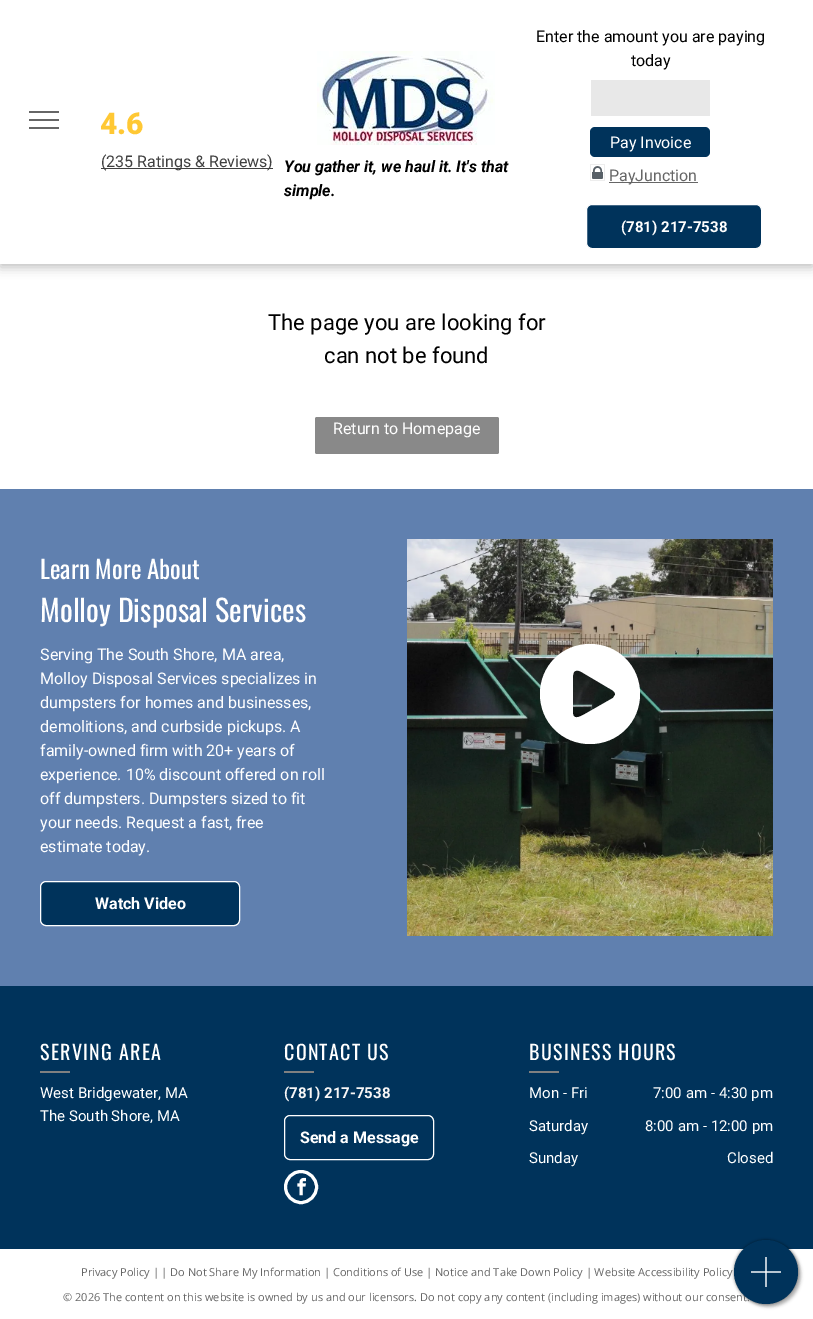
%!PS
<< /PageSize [813 1319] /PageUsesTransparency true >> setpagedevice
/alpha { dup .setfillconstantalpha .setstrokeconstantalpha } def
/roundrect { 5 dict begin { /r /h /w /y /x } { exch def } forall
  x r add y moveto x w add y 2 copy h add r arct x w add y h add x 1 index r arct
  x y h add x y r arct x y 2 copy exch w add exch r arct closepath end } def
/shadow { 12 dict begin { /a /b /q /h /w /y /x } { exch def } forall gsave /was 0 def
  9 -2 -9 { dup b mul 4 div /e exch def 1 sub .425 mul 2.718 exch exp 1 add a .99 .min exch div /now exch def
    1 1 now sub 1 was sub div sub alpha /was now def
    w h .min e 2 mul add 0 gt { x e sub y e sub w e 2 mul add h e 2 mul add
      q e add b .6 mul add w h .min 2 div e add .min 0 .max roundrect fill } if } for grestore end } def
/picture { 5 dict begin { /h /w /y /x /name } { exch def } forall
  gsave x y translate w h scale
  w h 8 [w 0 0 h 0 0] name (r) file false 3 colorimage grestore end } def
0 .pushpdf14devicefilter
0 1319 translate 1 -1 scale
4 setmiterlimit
1 setgray
0 0 813 1319 rectfill
0 setgray
0 3 813 264 0 5.5 0.25 shadow
1 setgray
0 0 813 264 rectfill
0.4 setgray
29 111 30 2 rectfill
29 119 30 2 rectfill
29 127 30 2 rectfill
/Roboto-Black [30 0 0 -30 0 0] selectfont
1 0.784 0.204 setrgbcolor
100 134 moveto (4.6) show
0.251 setgray
101 168 5 1 rectfill
/Roboto-Regular [16 0 0 -16 0 0] selectfont
101 167 moveto (\(235) show
106 168 167 1 rectfill
137 167 moveto (Ratings & Reviews\)) show
0 setgray
536 42 moveto (Enter the amount you are paying) show
631 66 moveto (today) show
0.91 setgray
591 80 119 36 rectfill
0 0.2 0.357 setrgbcolor
590 127 120 30 5 roundrect fill
1 setgray
610 148 moveto (Pay Invoice) show
(img1.rgb) 590 164 15 17 picture
0.4 setgray
609 182 89 1 rectfill
609 181 moveto (PayJunction) show
0 0.2 0.357 setrgbcolor
586.5 204.5 175 44 5.5 roundrect gsave fill grestore
1 setgray
stroke
/Roboto-Bold [15 0 0 -15 0 0] selectfont
621 232 moveto (\(781\) 217-7538) show
(img2.rgb) 317 51 178 94 picture
/Roboto-BoldItalic [16 0 0 -16 0 0] selectfont
0 setgray
284 172 moveto (You gather it, we haul it. It's that) show
284 196 moveto (simple.) show
/Roboto-Regular [22 0 0 -22 0 0] selectfont
268 330 moveto (The page you are looking for) show
324 363 moveto (can not be found) show
0.537 setgray
315 417 184 37 2 roundrect fill
/Roboto-Regular [16 0 0 -16 0 0] selectfont
1 setgray
333 434 moveto (Return to Homepage) show
0.376 0.502 0.686 setrgbcolor
0 489 813 497 rectfill
/Oswald-Regular [25 0 0 -25 0 0] selectfont
1 setgray
40 579 moveto (Learn More About) show
/Oswald-Regular [30 0 0 -30 0 0] selectfont
40 622 moveto (Molloy Disposal Services) show
/Roboto-Regular [16 0 0 -16 0 0] selectfont
40 660 moveto (Serving The South Shore, MA area,) show
40 684 moveto (Molloy Disposal Services specializes in) show
40 708 moveto (dumpsters for homes and businesses,) show
40 732 moveto (demolitions, and curbside pickups. A) show
40 756 moveto (family-owned firm with 20+ years of) show
40 780 moveto (experience. 10% discount offered on roll) show
40 804 moveto (off dumpsters. Dumpsters sized to fit) show
40 828 moveto (your needs. Request a fast, free) show
40 852 moveto (estimate today.) show
0 0.2 0.357 setrgbcolor
40.5 881.5 199 44 5.5 roundrect gsave fill grestore
1 setgray
stroke
/Roboto-Bold [16 0 0 -16 0 0] selectfont
95 909 moveto (Watch Video) show
(img3.rgb) 407 539 366 397 picture
newpath 590 644 moveto 562 644 540 666 540 694 curveto 540 722 562 744 590 744 curveto 618 744 640 722 640 694 curveto 640 666 618 644 590 644 curveto closepath 613 698 moveto 585 714 lineto 583 715 574 721 573 714 curveto 573 688 lineto 573 684 572 675 574 672 curveto 577 668 583 673 585 674 curveto 607 687 lineto 610 689 616 691 615 695 curveto closepath fill
0 0.2 0.357 setrgbcolor
0 986 813 263 rectfill
/Oswald-Regular [20 0 0 -20 0 0] selectfont
1 setgray
40 1060 moveto 1.25 0 (SERVING AREA) ashow
0.502 setgray
40 1071 30 2 rectfill
/Roboto-Regular [15 0 0 -15 0 0] selectfont
1 setgray
40 1098 moveto (West Bridgewater, MA) show
40 1121 moveto (The South Shore, MA) show
/Oswald-Regular [20 0 0 -20 0 0] selectfont
284 1060 moveto 1.25 0 (CONTACT US) ashow
0.502 setgray
284 1071 30 2 rectfill
/Roboto-Bold [15 0 0 -15 0 0] selectfont
0.973 0.965 0.965 setrgbcolor
284 1098 moveto (\(781\) 217-7538) show
1 setgray
284.5 1115.5 149 44 5.5 roundrect stroke
/Roboto-Bold [16 0 0 -16 0 0] selectfont
300 1143 moveto (Send a Message) show
3 setlinewidth
newpath 301 1187 15.5 0 360 arc closepath stroke
(img4.rgb) 297 1177 9 19 picture
/Oswald-Regular [20 0 0 -20 0 0] selectfont
529 1060 moveto 1.25 0 (BUSINESS HOURS) ashow
0.502 setgray
529 1071 30 2 rectfill
/Roboto-Regular [15 0 0 -15 0 0] selectfont
1 setgray
529 1098 moveto (Mon - Fri) show
653 1098 moveto (7:00 am - 4:30 pm) show
529 1131 moveto (Saturday) show
645 1131 moveto (8:00 am - 12:00 pm) show
529 1163 moveto (Sunday) show
727 1163 moveto (Closed) show
0 setgray
737 1243 64 64 32 1.5 0.25 shadow
734 1240 64 64 32 1.5 0.5 shadow
/OpenSans-Regular [11 0 0 -11 0 0] selectfont
0.4 setgray
63 1301 moveto (© 2026 The content on this website is owned by us and our licensors. Do not copy any content \(including images\) without our consent.) show
0 0.2 0.357 setrgbcolor
newpath 766 1272 32 0 360 arc closepath fill
(img5.rgb) 751 1257 30 30 picture
0.4 setgray
81 1276 moveto (Privacy Policy | | Do Not Share My Information | Conditions of Use | Notice and Take Down Policy | Website Accessibility Policy) show
.poppdf14devicefilter showpage
